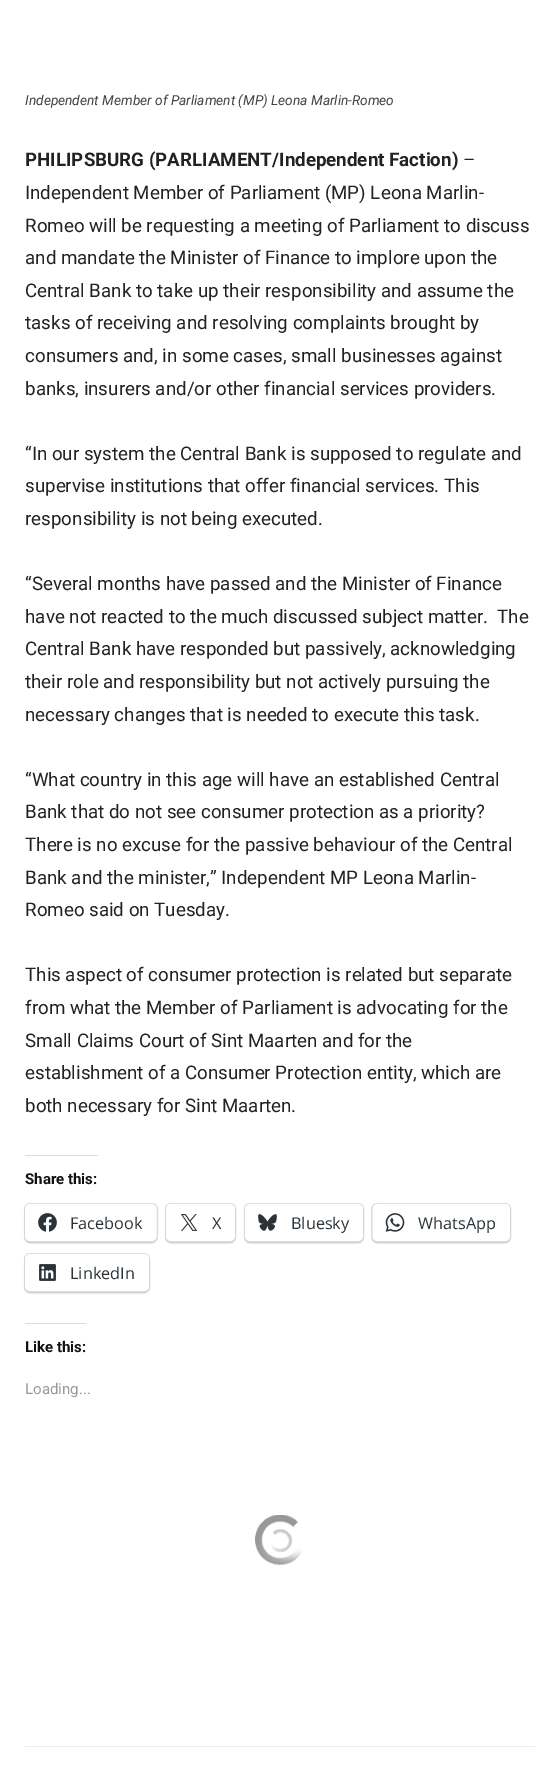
%!PS
<< /PageSize [560 1790] /PageUsesTransparency true >> setpagedevice
/alpha { dup .setfillconstantalpha .setstrokeconstantalpha } def
/roundrect { 5 dict begin { /r /h /w /y /x } { exch def } forall
  x r add y moveto x w add y 2 copy h add r arct x w add y h add x 1 index r arct
  x y h add x y r arct x y 2 copy exch w add exch r arct closepath end } def
/shadow { 12 dict begin { /a /b /q /h /w /y /x } { exch def } forall gsave /was 0 def
  9 -2 -9 { dup b mul 4 div /e exch def 1 sub .425 mul 2.718 exch exp 1 add a .99 .min exch div /now exch def
    1 1 now sub 1 was sub div sub alpha /was now def
    w h .min e 2 mul add 0 gt { x e sub y e sub w e 2 mul add h e 2 mul add
      q e add b .6 mul add w h .min 2 div e add .min 0 .max roundrect fill } if } for grestore end } def
/picture { 5 dict begin { /h /w /y /x /name } { exch def } forall
  gsave x y translate w h scale
  w h 8 [w 0 0 h 0 0] name (r) file false 3 colorimage grestore end } def
0 .pushpdf14devicefilter
0 1790 translate 1 -1 scale
4 setmiterlimit
1 setgray
0 0 560 1790 rectfill
/Roboto-Italic [13.75 0 0 -13.75 0 0] selectfont
0.267 setgray
25 105 moveto (Independent Member of Parliament \(MP\) Leona Marlin-Romeo) show
/Roboto-Bold [18.75 0 0 -18.75 0 0] selectfont
0.133 setgray
25 166 moveto (PHILIPSBURG \(PARLIAMENT/Independent Faction\)) show
/Roboto-Regular [18.75 0 0 -18.75 0 0] selectfont
463 166 moveto (–) show
25 199 moveto (Independent Member of Parliament \(MP\) Leona Marlin-) show
25 232 moveto (Romeo will be requesting a meeting of Parliament to discuss) show
25 264 moveto (and mandate the Minister of Finance to implore upon the) show
25 297 moveto (Central Bank to take up their responsibility and assume the) show
25 329 moveto (tasks of receiving and resolving complaints brought by) show
25 362 moveto (consumers and, in some cases, small businesses against) show
25 395 moveto (banks, insurers and/or other financial services providers.) show
25 460 moveto (“In our system the Central Bank is supposed to regulate and) show
25 492 moveto (supervise institutions that offer financial services. This) show
25 525 moveto (responsibility is not being executed.) show
25 590 moveto (“Several months have passed and the Minister of Finance) show
25 623 moveto (have not reacted to the much discussed subject matter.  The) show
25 655 moveto (Central Bank have responded but passively, acknowledging) show
25 688 moveto (their role and responsibility but not actively pursuing the) show
25 721 moveto (necessary changes that is needed to execute this task.) show
25 786 moveto (“What country in this age will have an established Central) show
25 818 moveto (Bank that do not see consumer protection as a priority?) show
25 851 moveto (There is no excuse for the passive behaviour of the Central) show
25 884 moveto (Bank and the minister,” Independent MP Leona Marlin-) show
25 916 moveto (Romeo said on Tuesday.) show
25 981 moveto (This aspect of consumer protection is related but separate) show
25 1014 moveto (from what the Member of Parliament is advocating for the) show
25 1047 moveto (Small Claims Court of Sint Maarten and for the) show
25 1079 moveto (establishment of a Consumer Protection entity, which are) show
25 1112 moveto (both necessary for Sint Maarten.) show
0.863 0.863 0.871 setrgbcolor
25 1155 73 1 rectfill
/Roboto-Bold [15 0 0 -15 0 0] selectfont
0.067 setgray
25 1184 moveto (Share this:) show
0.878 setgray
24.5 1203.5 133 39 5.5 roundrect stroke
0 setgray
25 1205 131 38 5 1 0.12 shadow
1 setgray
25 1204 131 37 5 roundrect fill
(img1.rgb) 38 1213 19 19 picture
/OpenSans-Regular [16.25 0 0 -16.25 0 0] selectfont
0.173 0.2 0.22 setrgbcolor
70 1229 moveto (Facebook) show
0.878 setgray
165.5 1203.5 70 39 5.5 roundrect stroke
0 setgray
166 1205 69 38 5 1 0.12 shadow
1 setgray
166 1204 69 37 5 roundrect fill
(img2.rgb) 180 1214 18 17 picture
0.173 0.2 0.22 setrgbcolor
212 1229 moveto (X) show
0.878 setgray
244.5 1203.5 119 39 5.5 roundrect stroke
0 setgray
245 1205 118 38 5 1 0.12 shadow
1 setgray
245 1204 118 37 5 roundrect fill
(img3.rgb) 258 1214 19 17 picture
0.173 0.2 0.22 setrgbcolor
291 1229 moveto (Bluesky) show
0.878 setgray
371.5 1203.5 139 39 5.5 roundrect stroke
0 setgray
373 1205 137 38 5 1 0.12 shadow
1 setgray
373 1204 137 37 5 roundrect fill
(img4.rgb) 385 1213 20 19 picture
0.173 0.2 0.22 setrgbcolor
418 1229 moveto (WhatsApp) show
0.878 setgray
24.5 1253.5 125 39 5.5 roundrect stroke
0 setgray
25 1255 124 38 5 1 0.12 shadow
1 setgray
25 1254 124 37 5 roundrect fill
(img5.rgb) 39 1264 17 17 picture
0.173 0.2 0.22 setrgbcolor
70 1279 moveto (LinkedIn) show
0.863 0.863 0.871 setrgbcolor
25 1323 61 1 rectfill
/Roboto-Bold [15 0 0 -15 0 0] selectfont
0.067 setgray
25 1352 moveto (Like this:) show
/Roboto-Regular [15 0 0 -15 0 0] selectfont
0.6 setgray
25 1394 moveto (Loading...) show
(img6.rgb) 255 1515 48 50 picture
0.929 setgray
25 1746 510 1 rectfill
.poppdf14devicefilter showpage
